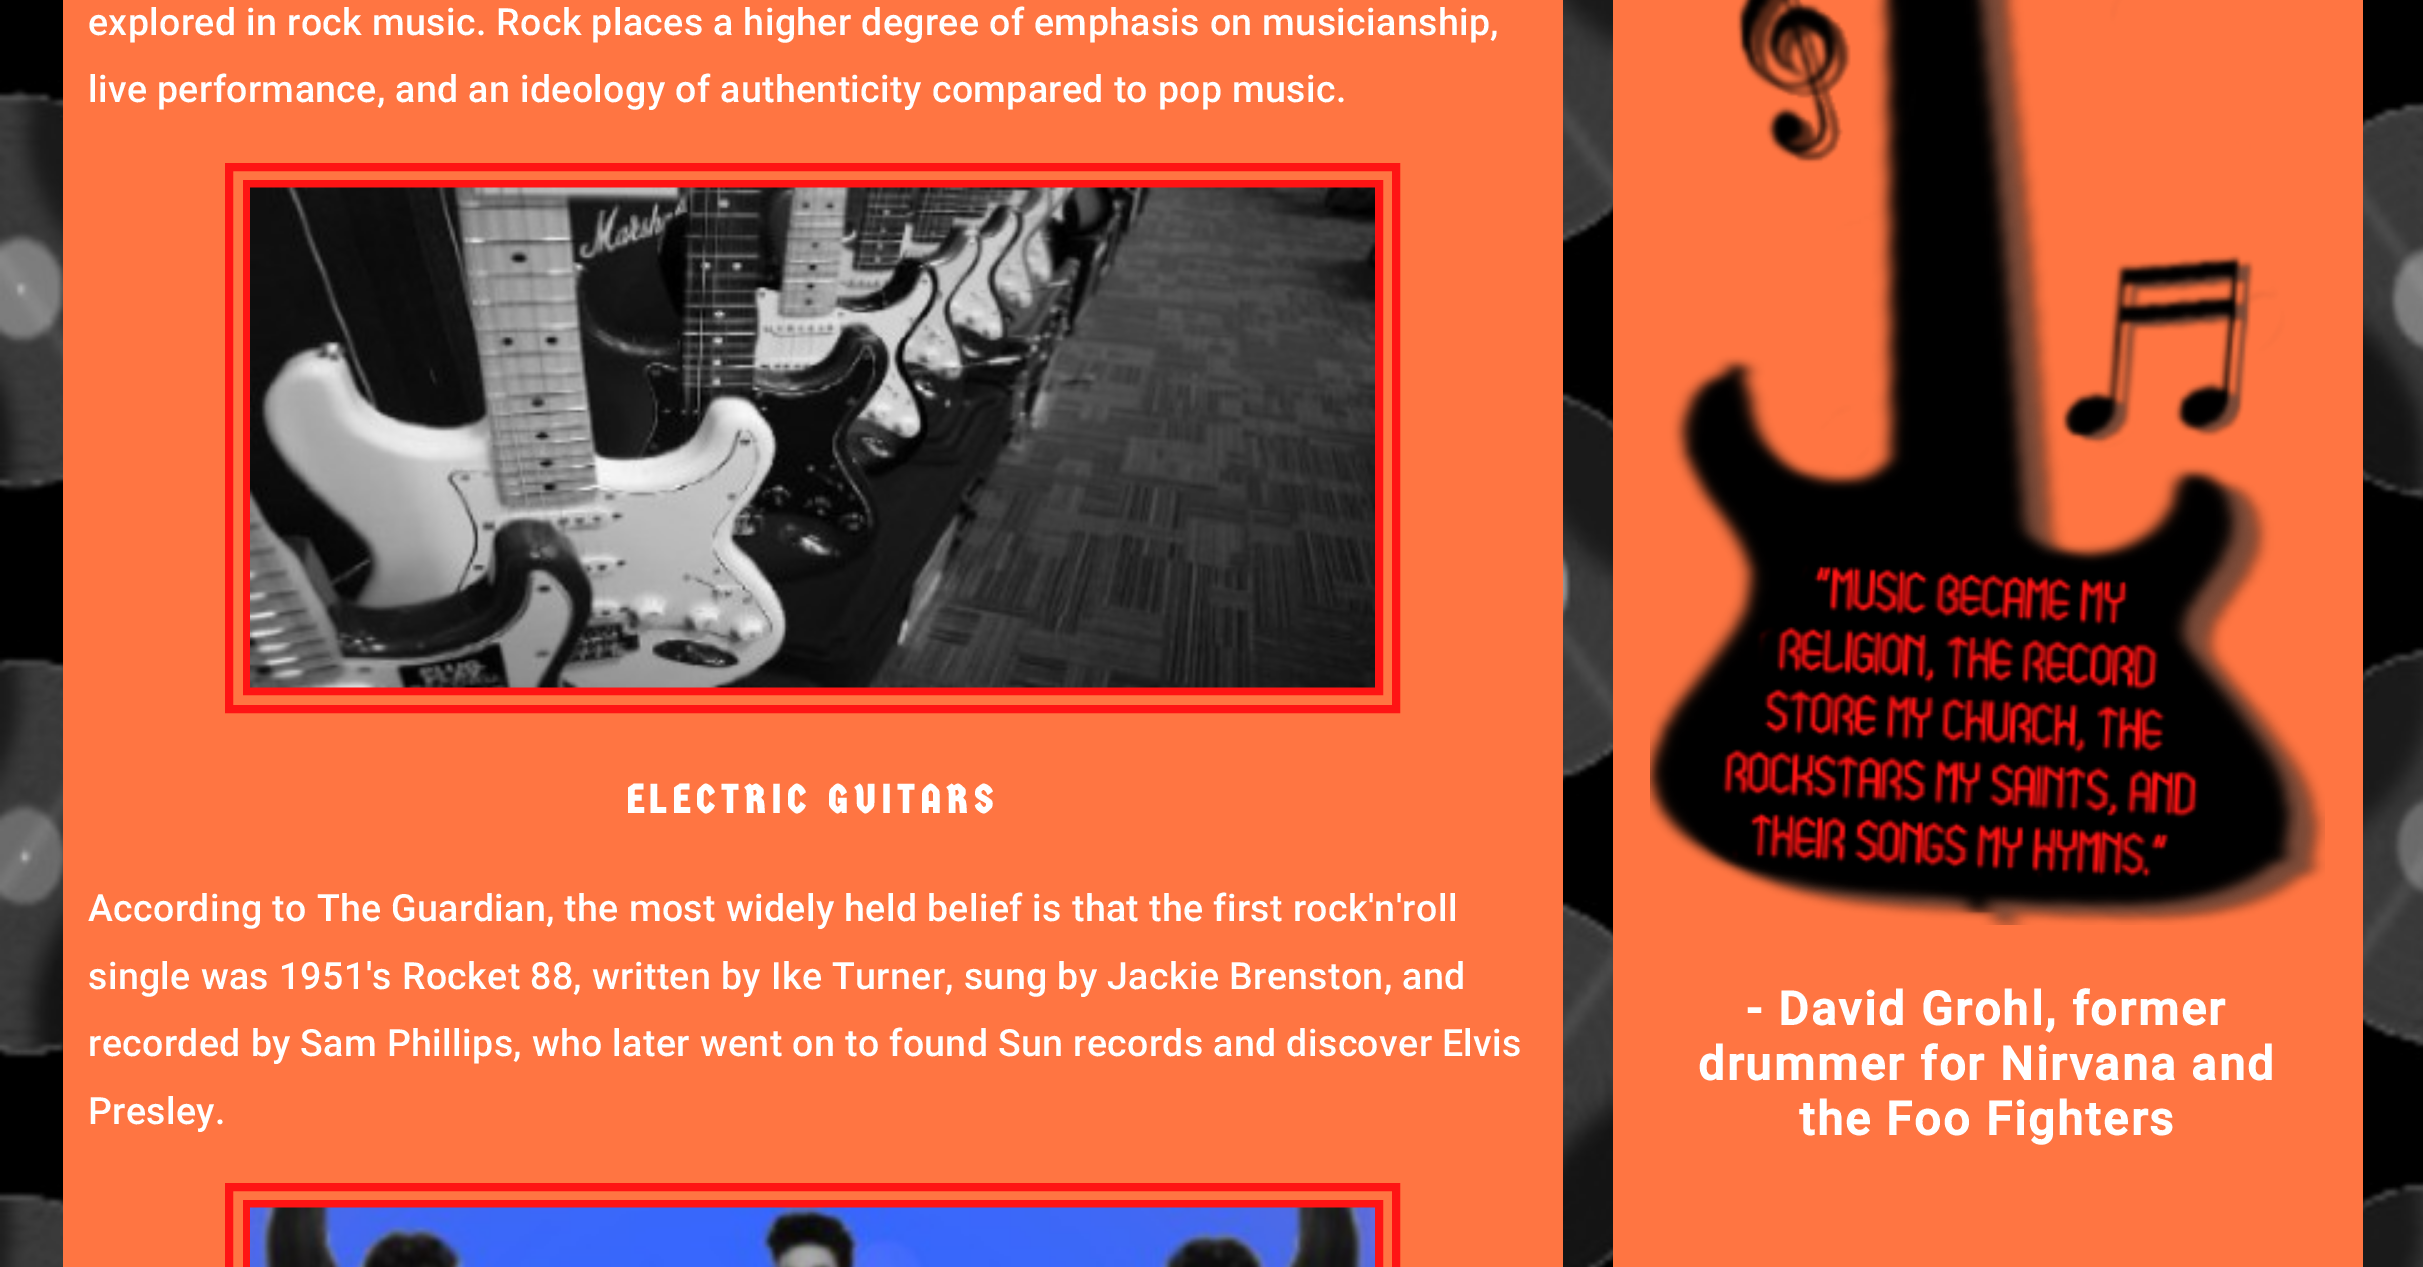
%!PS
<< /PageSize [2423 1267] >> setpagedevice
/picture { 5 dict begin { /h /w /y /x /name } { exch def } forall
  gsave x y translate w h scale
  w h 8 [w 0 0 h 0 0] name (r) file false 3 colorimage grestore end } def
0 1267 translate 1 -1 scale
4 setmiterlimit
1 setgray
0 0 2423 1267 rectfill
(img1.rgb) 0 0 2423 1267 picture
1 0.459 0.259 setrgbcolor
63 0 1500 1267 rectfill
/Roboto-Medium [37.5 0 0 -37.5 0 0] selectfont
1 setgray
88 35 moveto 0.38 0 (explored in rock music. Rock places a higher degree of emphasis on musicianship,) ashow
88 102 moveto 0.38 0 (live performance, and an ideology of authenticity compared to pop music.) ashow
1 0.078 0.078 setrgbcolor
8 setlinewidth
229 167 1167 542 rectstroke
247 184 1132 507 rectstroke
(img2.rgb) 250 187 1125 501 picture
/GermaniaOne-Bold [40 0 0 -40 0 0] selectfont
1 setgray
626 813 moveto 6 0 (ELECTRIC GUITARS) ashow
/Roboto-Medium [37.5 0 0 -37.5 0 0] selectfont
88 921 moveto 0.38 0 (According to The Guardian, the most widely held belief is that the first rock'n'roll) ashow
88 989 moveto 0.38 0 (single was 1951's Rocket 88, written by Ike Turner, sung by Jackie Brenston, and) ashow
88 1056 moveto 0.38 0 (recorded by Sam Phillips, who later went on to found Sun records and discover Elvis) ashow
88 1124 moveto 0.38 0 (Presley.) ashow
1 0.078 0.078 setrgbcolor
229 1187 1167 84 rectstroke
247 1204 1132 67 rectstroke
(img3.rgb) 250 1207 1125 60 picture
1 0.459 0.259 setrgbcolor
1613 0 750 1267 rectfill
(img4.rgb) 1650 0 675 925 picture
/Roboto-Bold [46.75 0 0 -46.75 0 0] selectfont
1 setgray
1746 1025 moveto 2.3 0 (- David Grohl, former) ashow
1698 1080 moveto 2.3 0 (drummer for Nirvana and) ashow
1799 1135 moveto 2.3 0 (the Foo Fighters) ashow
showpage
